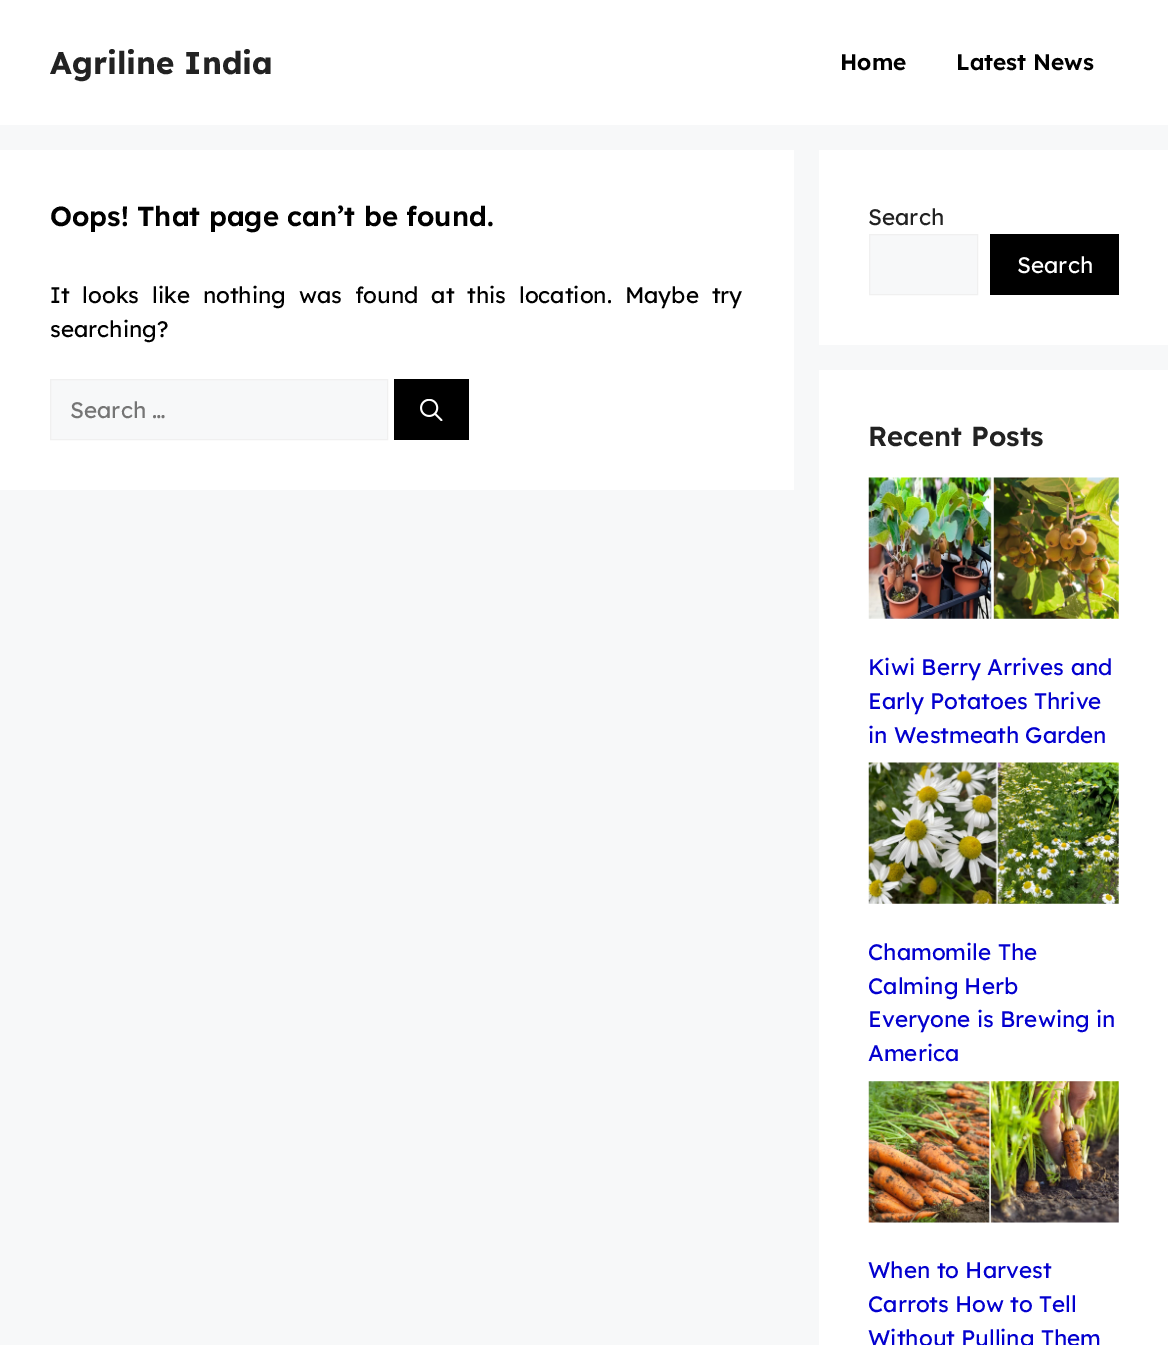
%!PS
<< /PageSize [1168 1345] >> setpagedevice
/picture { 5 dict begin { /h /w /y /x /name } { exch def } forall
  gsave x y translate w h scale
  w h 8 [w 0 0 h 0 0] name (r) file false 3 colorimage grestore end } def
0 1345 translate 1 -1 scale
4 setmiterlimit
0.969 0.973 0.976 setrgbcolor
0 0 1168 1345 rectfill
1 setgray
0 0 1168 125 rectfill
/LexendDeca-Bold [31.25 0 0 -31.25 0 0] selectfont
0.133 setgray
50 74 moveto (Agriline India) show
/LexendDeca-SemiBold [22.5 0 0 -22.5 0 0] selectfont
0 setgray
840 70 moveto (Home) show
956 70 moveto (Latest News) show
1 setgray
0 150 794 340 rectfill
/LexendDeca-SemiBold [27.5 0 0 -27.5 0 0] selectfont
0 setgray
50 226 moveto (Oops! That page can’t be found.) show
/LexendDeca-Regular [22.5 0 0 -22.5 0 0] selectfont
50 303 moveto 6.5 0 32 (It looks like nothing was found at this location. Maybe try) widthshow
50 337 moveto (searching?) show
0.969 0.973 0.976 setrgbcolor
newpath 50.5 379.5 moveto 387.5 379.5 lineto 387.5 439.5 lineto 50.5 439.5 lineto closepath gsave fill grestore
0.941 setgray
stroke
0.459 setgray
70 418 moveto (Search …) show
0 setgray
394 379 75 61 rectfill
(img1.rgb) 420 399 23 22 picture
1 setgray
819 150 349 195 rectfill
0.133 setgray
868 225 moveto (Search) show
0.969 0.973 0.976 setrgbcolor
newpath 869.5 234.5 moveto 977.5 234.5 lineto 977.5 294.5 lineto 869.5 294.5 lineto closepath gsave fill grestore
0.941 setgray
stroke
0 setgray
990 234 129 61 rectfill
1 setgray
1017 273 moveto (Search) show
819 370 349 975 rectfill
/LexendDeca-SemiBold [27.5 0 0 -27.5 0 0] selectfont
0.133 setgray
868 446 moveto (Recent Posts) show
(img2.rgb) 868 477 251 142 picture
/LexendDeca-Regular [22.5 0 0 -22.5 0 0] selectfont
0.012 0 0.812 setrgbcolor
868 675 moveto (Kiwi Berry Arrives and) show
868 709 moveto (Early Potatoes Thrive) show
868 743 moveto (in Westmeath Garden) show
(img3.rgb) 868 762 251 142 picture
868 960 moveto (Chamomile The) show
868 994 moveto (Calming Herb) show
868 1027 moveto (Everyone is Brewing in) show
868 1061 moveto (America) show
(img4.rgb) 868 1081 251 142 picture
868 1278 moveto (When to Harvest) show
868 1312 moveto (Carrots How to Tell) show
868 1346 moveto (Without Pulling Them) show
showpage
